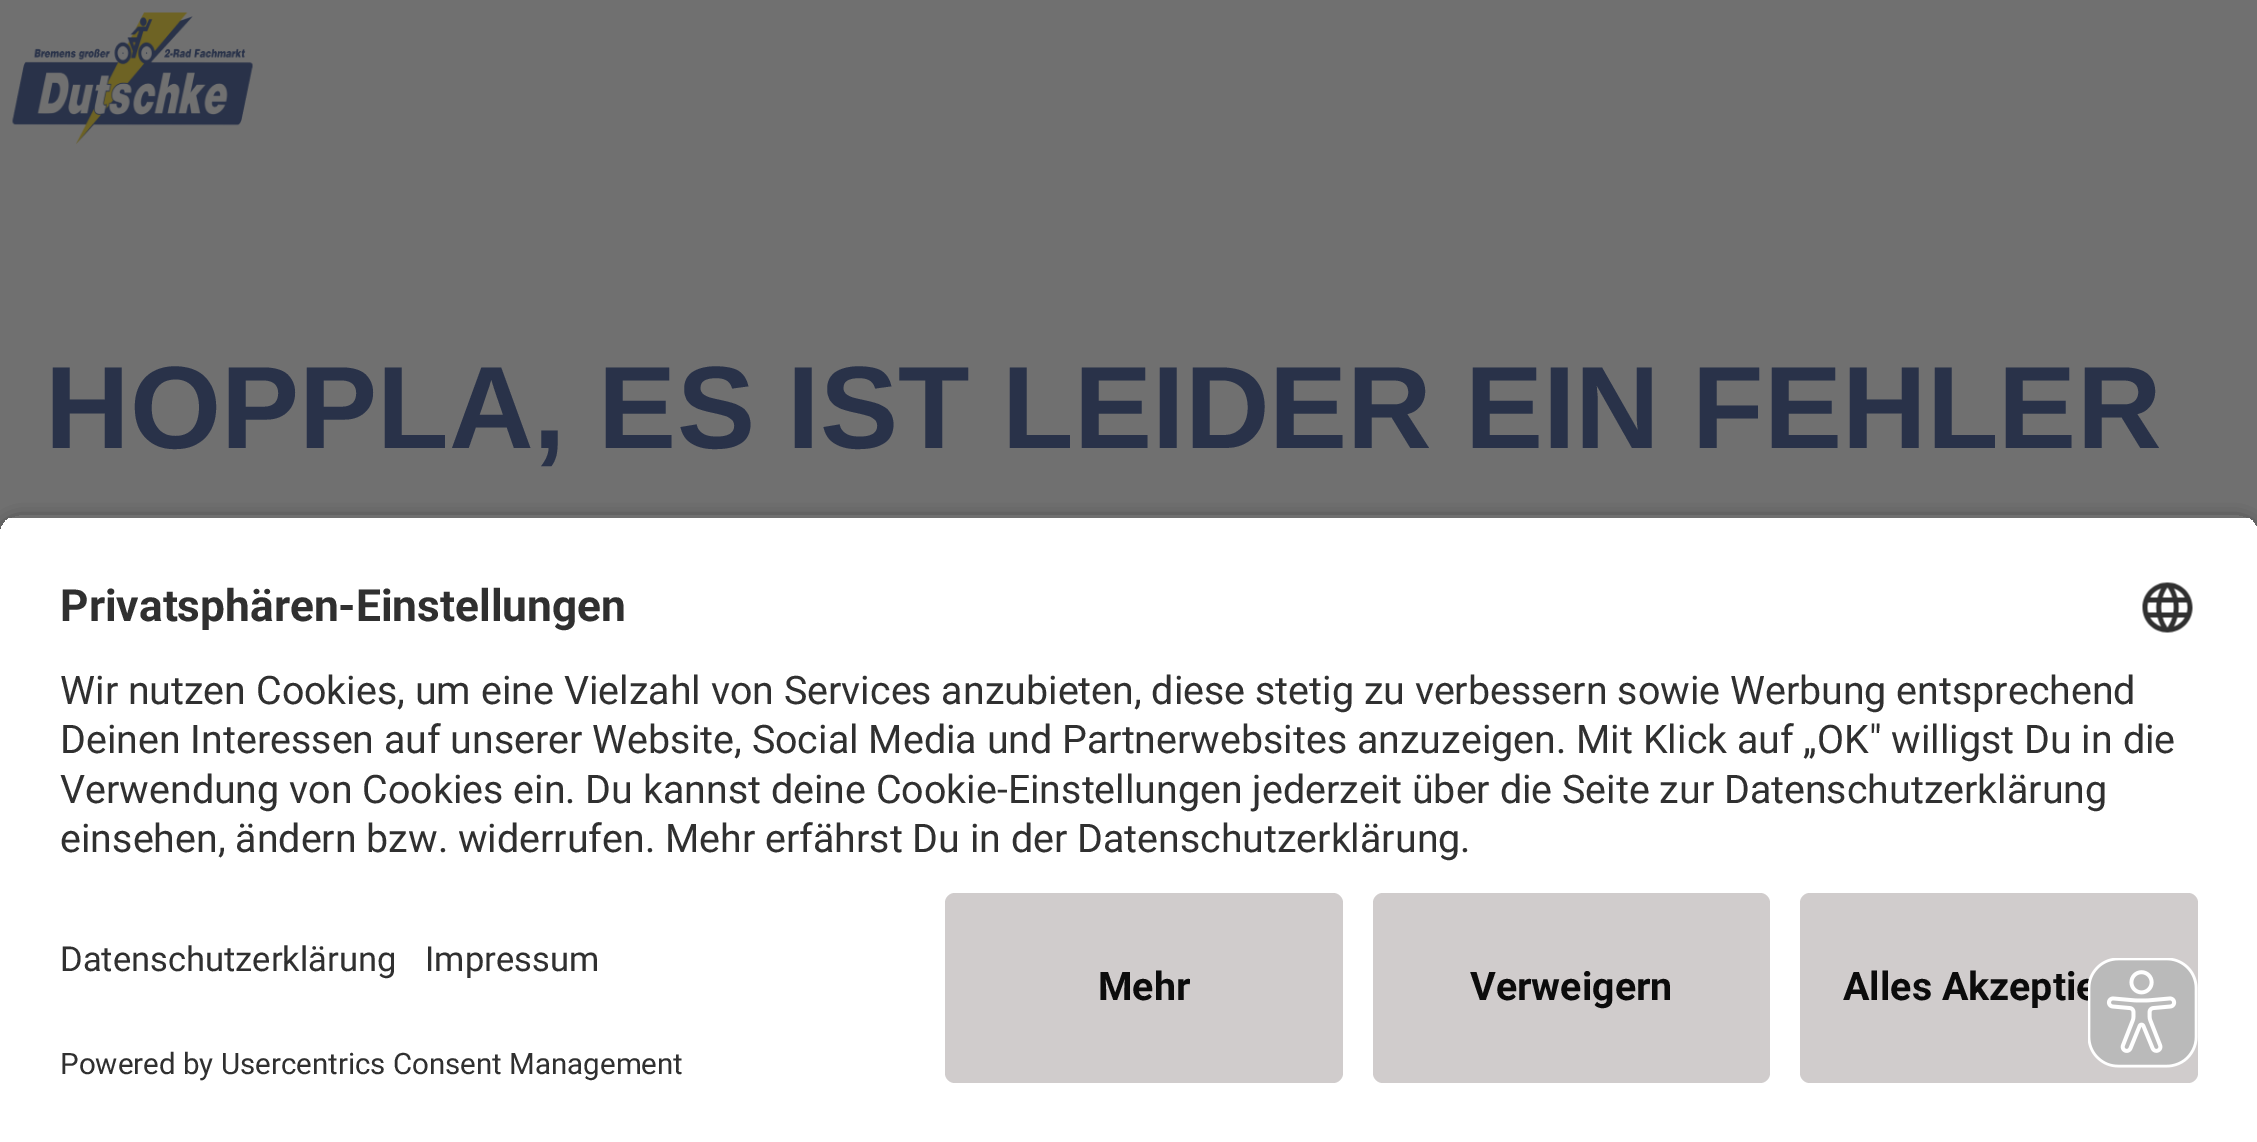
%!PS
<< /PageSize [2257 1142] /PageUsesTransparency true >> setpagedevice
/alpha { dup .setfillconstantalpha .setstrokeconstantalpha } def
/roundrect { 5 dict begin { /r /h /w /y /x } { exch def } forall
  x r add y moveto x w add y 2 copy h add r arct x w add y h add x 1 index r arct
  x y h add x y r arct x y 2 copy exch w add exch r arct closepath end } def
/shadow { 12 dict begin { /a /b /q /h /w /y /x } { exch def } forall gsave /was 0 def
  9 -2 -9 { dup b mul 4 div /e exch def 1 sub .425 mul 2.718 exch exp 1 add a .99 .min exch div /now exch def
    1 1 now sub 1 was sub div sub alpha /was now def
    w h .min e 2 mul add 0 gt { x e sub y e sub w e 2 mul add h e 2 mul add
      q e add b .6 mul add w h .min 2 div e add .min 0 .max roundrect fill } if } for grestore end } def
/picture { 5 dict begin { /h /w /y /x /name } { exch def } forall
  gsave x y translate w h scale
  w h 8 [w 0 0 h 0 0] name (r) file false 3 colorimage grestore end } def
0 .pushpdf14devicefilter
0 1142 translate 1 -1 scale
4 setmiterlimit
0.439 setgray
0 0 2257 1142 rectfill
(img1.rgb) 12 12 241 133 picture
/LiberationSans-Bold [117.2 0 0 -117.2 0 0] selectfont
0.161 0.196 0.286 setrgbcolor
45 448 moveto (HOPPLA, ES IST LEIDER EIN FEHLER) show
gsave
newpath 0 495 moveto 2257 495 lineto 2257 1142 lineto 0 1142 lineto closepath 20 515 moveto 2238 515 lineto 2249 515 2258 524 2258 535 curveto 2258 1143 lineto 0 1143 lineto 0 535 lineto 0 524 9 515 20 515 curveto closepath eoclip newpath
0 setgray
0 523 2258 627 20 9 0.8 shadow
grestore
gsave
newpath 20 515 moveto 2238 515 lineto 2249 515 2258 524 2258 535 curveto 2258 873 lineto 0 873 lineto 0 535 lineto 0 524 9 515 20 515 curveto closepath clip newpath
1 setgray
0 518 2257 355 rectfill
grestore
/Roboto-Bold [44.25 0 0 -44.25 0 0] selectfont
0.188 setgray
60 621 moveto (Privatsphären-Einstellungen) show
(img2.rgb) 2142 582 51 51 picture
/Roboto-Regular [39.38 0 0 -39.38 0 0] selectfont
60 704 moveto (Wir nutzen Cookies, um eine Vielzahl von Services anzubieten, diese stetig zu verbessern sowie Werbung entsprechend) show
60 753 moveto (Deinen Interessen auf unserer Website, Social Media und Partnerwebsites anzuzeigen. Mit Klick auf „OK" willigst Du in die) show
60 803 moveto (Verwendung von Cookies ein. Du kannst deine Cookie-Einstellungen jederzeit über die Seite zur Datenschutzerklärung) show
60 852 moveto (einsehen, ändern bzw. widerrufen. Mehr erfährst Du in der Datenschutzerklärung.) show
1 setgray
0 873 2257 269 rectfill
/Roboto-Regular [34.5 0 0 -34.5 0 0] selectfont
0.188 setgray
60 971 moveto (Datenschutzerklärung) show
425 971 moveto (Impressum) show
/Roboto-Regular [29.5 0 0 -29.5 0 0] selectfont
60 1074 moveto (Powered by Usercentrics Consent Management) show
0.816 0.8 0.8 setrgbcolor
945 893 398 190 10 roundrect fill
/Roboto-Bold [39.38 0 0 -39.38 0 0] selectfont
0.047 setgray
1098 1000 moveto (Mehr) show
0.816 0.8 0.8 setrgbcolor
1373 893 397 190 10 roundrect fill
0.047 setgray
1470 1000 moveto (Verweigern) show
0.816 0.8 0.8 setrgbcolor
1800 893 398 190 10 roundrect fill
0.047 setgray
1843 1000 moveto (Alles Akzeptie) show
(img3.rgb) 2088 958 110 110 picture
.poppdf14devicefilter showpage
